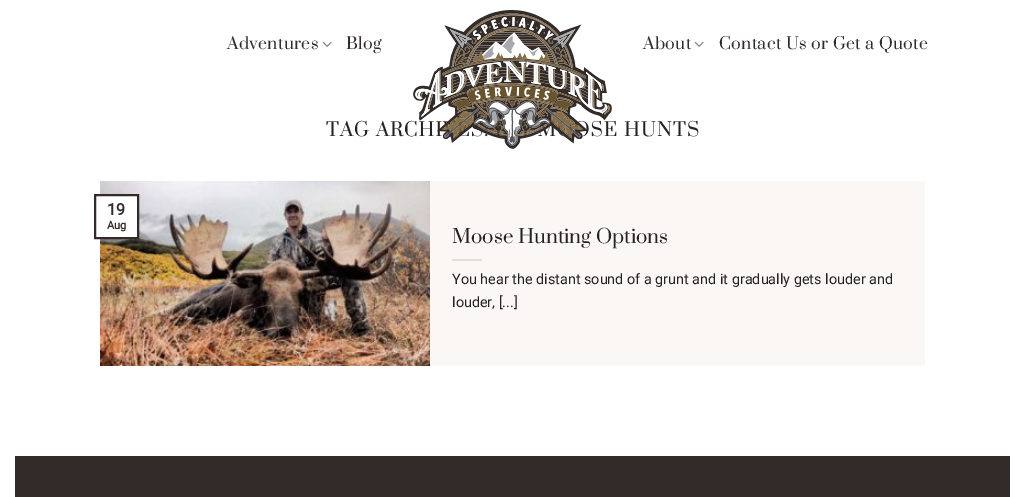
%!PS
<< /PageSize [1025 497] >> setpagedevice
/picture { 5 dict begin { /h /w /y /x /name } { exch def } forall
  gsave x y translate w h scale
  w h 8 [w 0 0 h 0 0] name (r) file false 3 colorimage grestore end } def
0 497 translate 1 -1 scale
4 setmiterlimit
1 setgray
0 0 1025 497 rectfill
/Prata-Regular [16 0 0 -16 0 0] selectfont
0.196 0.169 0.161 setrgbcolor
227 49 moveto 0.3 0 (Adventures) ashow
(img1.rgb) 322 41 10 6 picture
346 49 moveto 0.3 0 (Blog) ashow
/Prata-Regular [18.5 0 0 -18.5 0 0] selectfont
0.133 setgray
326 136 moveto 1 0 (TAG ARCH) ashow
591 136 moveto 1 0 (SE HUNTS) ashow
(img2.rgb) 413 10 199 139 picture
/Prata-Regular [16 0 0 -16 0 0] selectfont
0.196 0.169 0.161 setrgbcolor
643 49 moveto 0.3 0 (About) ashow
(img1.rgb) 694 41 10 6 picture
719 49 moveto 0.3 0 (Contact Us or Get a Quote) ashow
(img3.rgb) 100 181 330 185 picture
1 setgray
100 196 37 41 rectfill
0.196 0.169 0.161 setrgbcolor
2 setlinewidth
95 195 43 43 rectstroke
/Roboto-Bold [16 0 0 -16 0 0] selectfont
107 215 moveto (19) show
/Roboto-Bold [11 0 0 -11 0 0] selectfont
107 229 moveto (Aug) show
0.98 0.969 0.957 setrgbcolor
430 181 495 185 rectfill
/Prata-Regular [18.75 0 0 -18.75 0 0] selectfont
0.133 setgray
452 243 moveto (Moose Hunting Options) show
0.882 0.871 0.863 setrgbcolor
452 259 30 2 rectfill
/Roboto-Regular [14.4 0 0 -14.4 0 0] selectfont
0.133 setgray
452 284 moveto (You hear the distant sound of a grunt and it gradually gets louder and) show
452 307 moveto (louder, [...]) show
0.196 0.169 0.161 setrgbcolor
15 456 995 41 rectfill
showpage
